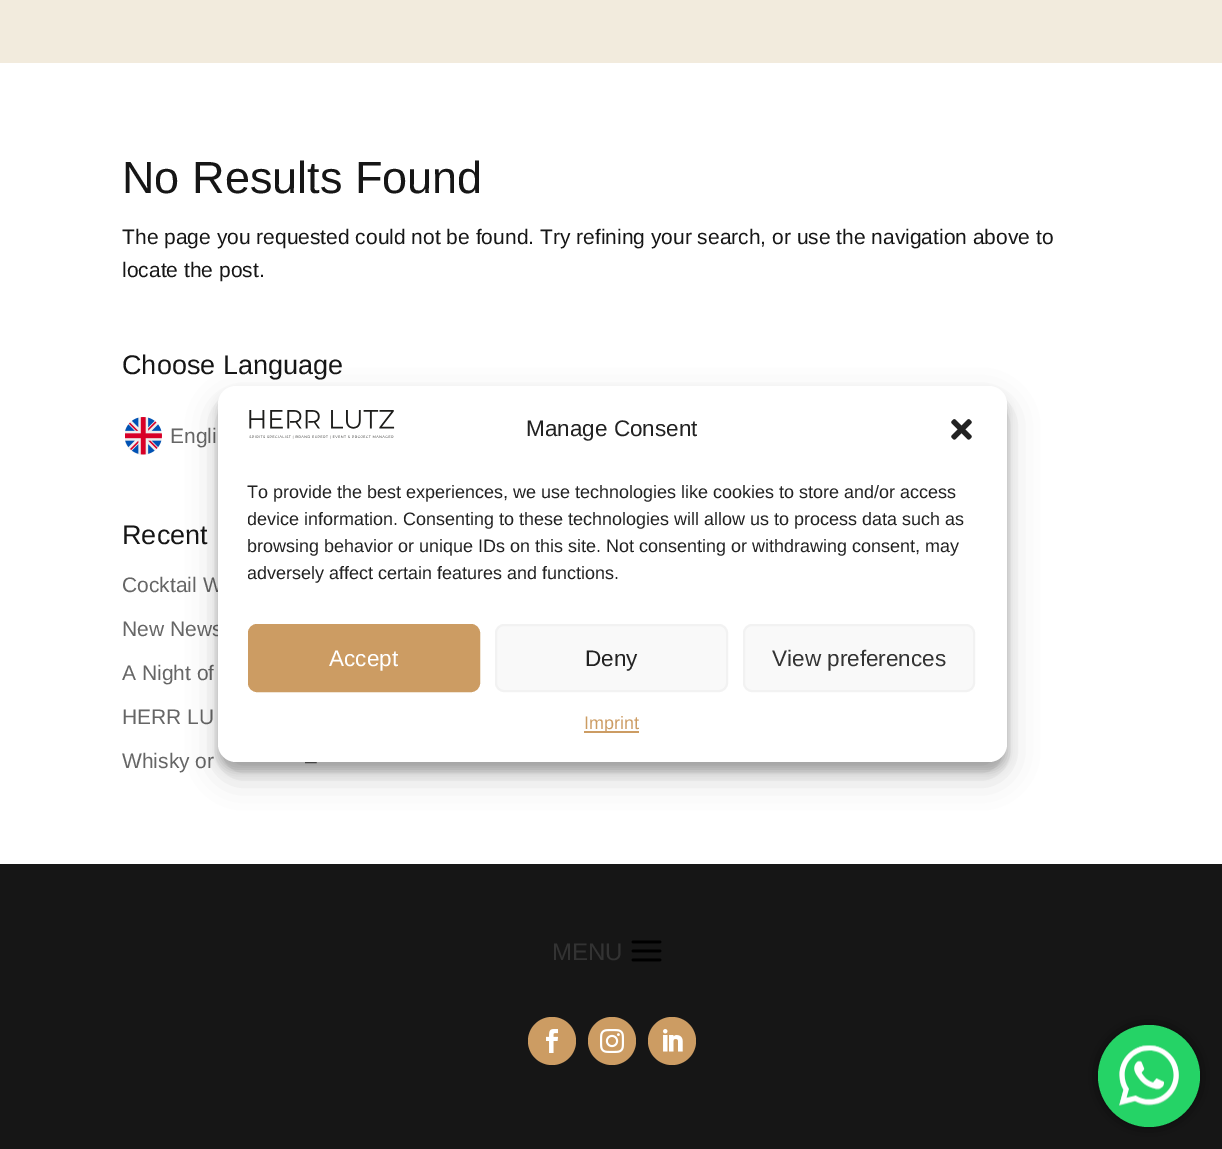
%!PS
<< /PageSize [1222 1149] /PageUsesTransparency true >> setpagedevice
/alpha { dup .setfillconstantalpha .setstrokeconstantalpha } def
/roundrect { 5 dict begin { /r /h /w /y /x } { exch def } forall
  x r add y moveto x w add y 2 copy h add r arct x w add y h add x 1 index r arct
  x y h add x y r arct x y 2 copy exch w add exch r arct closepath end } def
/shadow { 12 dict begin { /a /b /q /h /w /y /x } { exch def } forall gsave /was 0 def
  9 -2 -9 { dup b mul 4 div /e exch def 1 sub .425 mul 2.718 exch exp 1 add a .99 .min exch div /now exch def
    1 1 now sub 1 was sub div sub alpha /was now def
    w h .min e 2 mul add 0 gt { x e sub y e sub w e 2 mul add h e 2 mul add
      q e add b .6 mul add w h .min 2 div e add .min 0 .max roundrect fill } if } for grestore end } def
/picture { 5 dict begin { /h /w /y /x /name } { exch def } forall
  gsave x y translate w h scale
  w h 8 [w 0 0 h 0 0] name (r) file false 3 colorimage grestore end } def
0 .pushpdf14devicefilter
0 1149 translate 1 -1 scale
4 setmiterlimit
0.949 0.922 0.867 setrgbcolor
0 0 1222 1149 rectfill
1 setgray
0 63 1222 801 rectfill
/LiberationSans-Regular [45 0 0 -45 0 0] selectfont
0.086 setgray
122 193 moveto (No Results Found) show
/LiberationSans-Regular [21 0 0 -21 0 0] selectfont
122 244 moveto (The page you requested could not be found. Try refining your search, or use the navigation above to) show
122 277 moveto (locate the post.) show
/LiberationSans-Regular [27 0 0 -27 0 0] selectfont
122 374 moveto (Choose Language) show
(img1.rgb) 125 417 37 38 picture
/LiberationSans-Regular [21 0 0 -21 0 0] selectfont
0.4 setgray
170 443 moveto (Engli) show
/LiberationSans-Regular [27 0 0 -27 0 0] selectfont
0.086 setgray
122 544 moveto (Recent) show
/LiberationSans-Regular [21 0 0 -21 0 0] selectfont
0.4 setgray
122 592 moveto (Cocktail W) show
122 636 moveto (New News) show
122 680 moveto (A Night of) show
122 724 moveto (HERR LU) show
122 768 moveto (Whisky or) show
305 768 moveto (–) show
0.086 setgray
0 864 1222 285 rectfill
/LiberationSans-Regular [24 0 0 -24 0 0] selectfont
0.2 setgray
552 960 moveto (MENU) show
(img2.rgb) 631 940 31 22 picture
0.8 0.612 0.388 setrgbcolor
newpath 552 1041 24 0 360 arc closepath fill
(img3.rgb) 546 1029 12 24 picture
newpath 612 1041 24 0 360 arc closepath fill
(img4.rgb) 600 1029 24 24 picture
newpath 672 1041 24 0 360 arc closepath fill
(img5.rgb) 663 1029 20 23 picture
0 setgray
218 395 789 376 18 4.5 0.23 shadow
218 401 789 376 18 15 0.19 shadow
1 setgray
218 386 789 376 18 roundrect fill
(img6.rgb) 249 410 146 29 picture
/LiberationSans-Regular [22.5 0 0 -22.5 0 0] selectfont
0.133 setgray
526 436 moveto (Manage Consent) show
(img7.rgb) 951 419 21 21 picture
/LiberationSans-Regular [18 0 0 -18 0 0] selectfont
247 498 moveto (To provide the best experiences, we use technologies like cookies to store and/or access) show
gsave
248 479 729 115 rectclip
247 525 moveto (device information. Consenting to these technologies will allow us to process data such as) show
grestore
247 552 moveto (browsing behavior or unique IDs on this site. Not consenting or withdrawing consent, may) show
gsave
248 479 729 115 rectclip
247 579 moveto (adversely affect certain features and functions.) show
grestore
0.8 0.612 0.388 setrgbcolor
249 625 230 66 8 roundrect gsave fill grestore
2 setlinewidth
stroke
/LiberationSans-Regular [22.5 0 0 -22.5 0 0] selectfont
1 setgray
329 666 moveto (Accept) show
0.976 setgray
496 625 231 66 8 roundrect gsave fill grestore
0.949 setgray
stroke
0.133 setgray
585 666 moveto (Deny) show
0.976 setgray
744 625 230 66 8 roundrect gsave fill grestore
0.949 setgray
stroke
0.2 setgray
772 666 moveto (View preferences) show
0.8 0.612 0.388 setrgbcolor
584 731 55 2 rectfill
/LiberationSans-Regular [18 0 0 -18 0 0] selectfont
584 729 moveto (Imprint) show
0 setgray
1098 1025 102 102 51 8 0.5 shadow
0.145 0.827 0.4 setrgbcolor
newpath 1149 1076 51 0 360 arc closepath fill
(img8.rgb) 1119 1045 60 61 picture
.poppdf14devicefilter showpage
